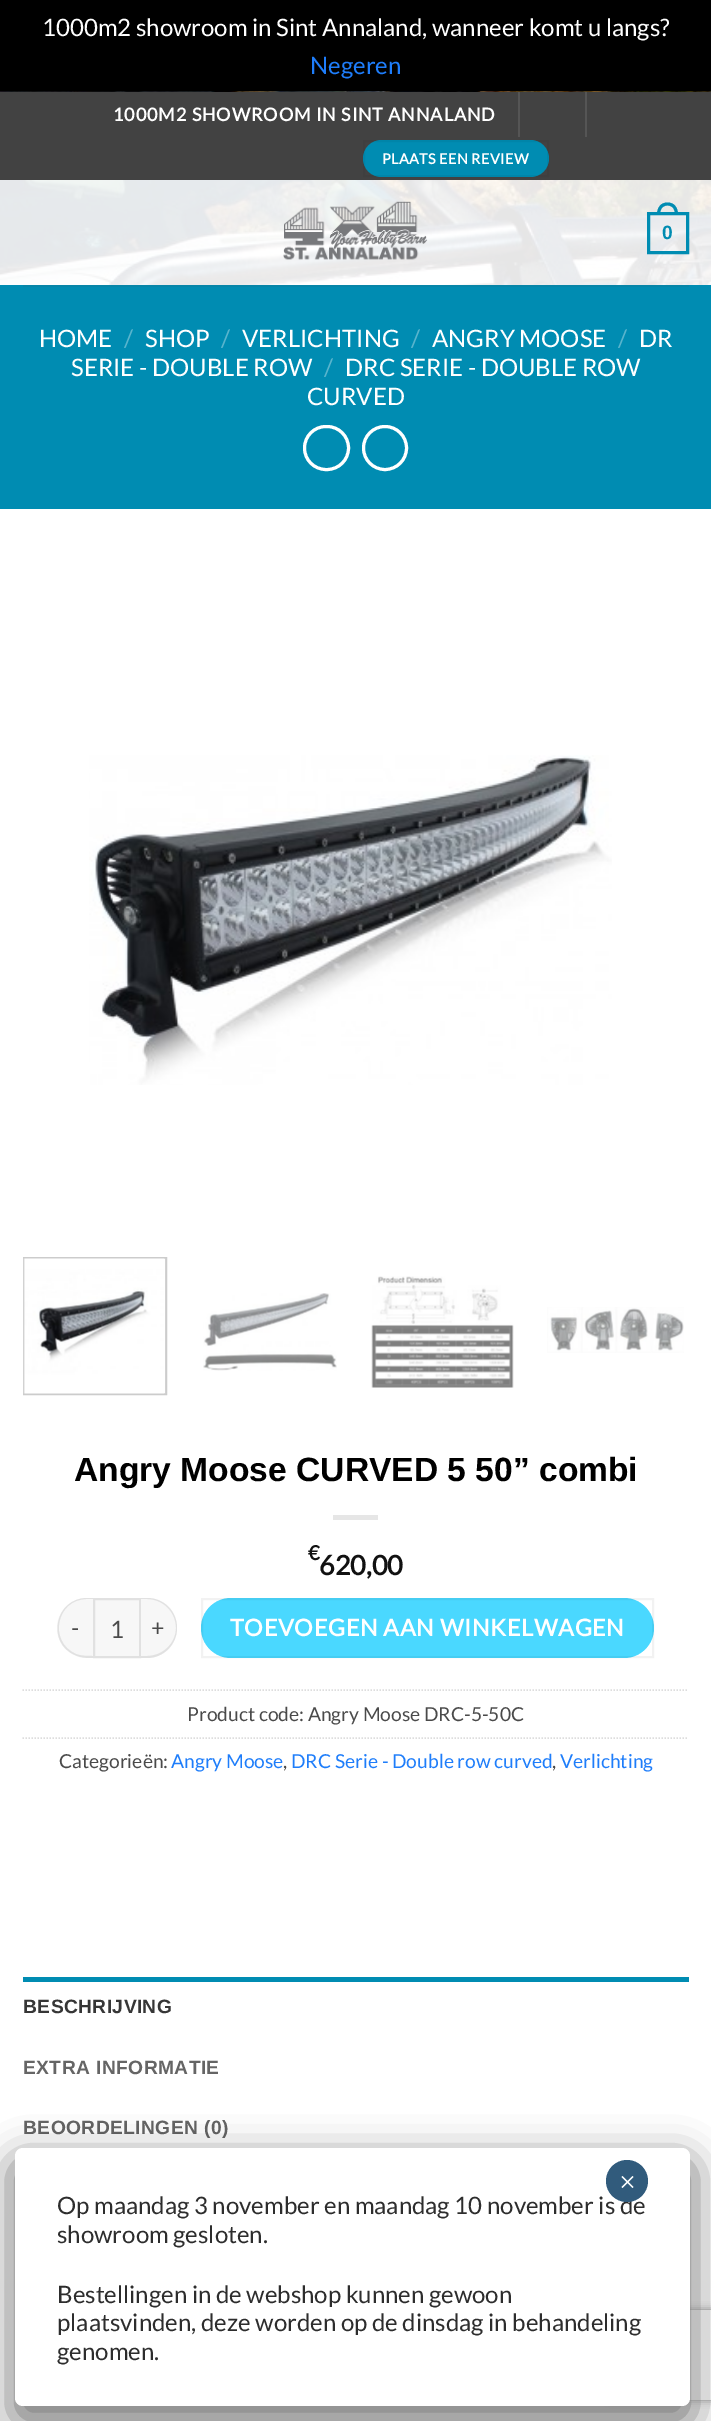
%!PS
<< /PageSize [711 2421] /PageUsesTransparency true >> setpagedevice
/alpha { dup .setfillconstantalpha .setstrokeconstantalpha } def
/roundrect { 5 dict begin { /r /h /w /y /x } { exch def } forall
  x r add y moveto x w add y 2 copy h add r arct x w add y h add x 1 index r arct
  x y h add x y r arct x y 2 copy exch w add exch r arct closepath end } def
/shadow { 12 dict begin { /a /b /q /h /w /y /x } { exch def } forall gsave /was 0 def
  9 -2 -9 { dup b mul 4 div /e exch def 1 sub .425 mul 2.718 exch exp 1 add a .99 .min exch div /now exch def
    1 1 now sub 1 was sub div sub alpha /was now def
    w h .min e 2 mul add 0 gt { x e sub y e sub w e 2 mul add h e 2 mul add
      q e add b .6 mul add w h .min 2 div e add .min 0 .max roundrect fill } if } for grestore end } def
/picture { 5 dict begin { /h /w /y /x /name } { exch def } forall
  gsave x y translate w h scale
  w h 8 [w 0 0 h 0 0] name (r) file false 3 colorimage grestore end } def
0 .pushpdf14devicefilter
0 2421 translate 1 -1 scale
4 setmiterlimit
1 setgray
0 0 711 2421 rectfill
0 setgray
0 0 711 92 rectfill
/Lato-Regular [24 0 0 -24 0 0] selectfont
1 setgray
42 36 moveto (1000m2 showroom in Sint Annaland, wanneer komt u langs?) show
0.118 0.49 0.98 setrgbcolor
310 74 moveto (Negeren) show
(img1.rgb) 0 91 711 194 picture
0.259 setgray
0 92 711 88 rectfill
/Lato-Bold [18 0 0 -18 0 0] selectfont
1 setgray
113 121 moveto 0.9 0 (1000M2 SHOWROOM IN SINT ANNALAND) ashow
0.333 setgray
518 92 2 45 rectfill
585 92 2 45 rectfill
0 0.549 0.698 setrgbcolor
363 140 186 37 18.5 roundrect fill
0.05 alpha
0 setgray
2 setlinewidth
364 141 184 35 rectstroke
/Lato-Bold [14.4 0 0 -14.4 0 0] selectfont
1 alpha
1 setgray
382 164 moveto 0.4 0 (PLAATS EEN REVIEW) ashow
(img2.rgb) 283 201 145 59 picture
0 0.549 0.698 setrgbcolor
3 setlinewidth
648.5 213.5 39 39 rectstroke
newpath 667.5 202.5 moveto 674.5 202.5 678 208 678 214.5 curveto 657 214.5 lineto 657 208 660.5 202.5 667.5 202.5 curveto closepath 667.5 205.5 moveto 673 205.5 675 210 675 214.5 curveto 660 214.5 lineto 660 210 662 205.5 667.5 205.5 curveto closepath eofill
/LiberationSans-Bold [19.25 0 0 -19.25 0 0] selectfont
662 239 moveto (0) show
0 285 711 224 rectfill
0.027 0.522 0.659 setrgbcolor
23 285 666 2 rectfill
/Lato-Regular [24 0 0 -24 0 0] selectfont
1 setgray
39 347 moveto (HOME) show
0.349 0.706 0.804 setrgbcolor
124 347 moveto (/) show
1 setgray
145 347 moveto (SHOP) show
0.349 0.706 0.804 setrgbcolor
221 347 moveto (/) show
1 setgray
242 347 moveto (VERLICHTING) show
0.349 0.706 0.804 setrgbcolor
411 347 moveto (/) show
1 setgray
432 347 moveto (ANGRY MOOSE) show
0.349 0.706 0.804 setrgbcolor
618 347 moveto (/) show
1 setgray
639 347 moveto (DR) show
71 376 moveto (SERIE - DOUBLE ROW) show
0.349 0.706 0.804 setrgbcolor
324 376 moveto (/) show
1 setgray
345 376 moveto (DRC SERIE - DOUBLE ROW) show
307 405 moveto (CURVED) show
304.5 426.5 44 43 21.5 roundrect stroke
newpath 385 448 21.5 0 360 arc closepath stroke
(img3.rgb) 89 755 523 330 picture
0.8 setgray
2 setlinewidth
24 1258 142 136 rectstroke
(img4.rgb) 23 1258 143 136 picture
(img5.rgb) 203 1293 134 78 picture
(img6.rgb) 371 1276 143 112 picture
(img7.rgb) 547 1307 137 46 picture
/LiberationSans-Bold [33.6 0 0 -33.6 0 0] selectfont
0 setgray
74 1481 moveto (Angry Moose CURVED 5 50” combi) show
0.902 setgray
333 1515 45 5 rectfill
/Lato-Bold [20 0 0 -20 0 0] selectfont
0.067 setgray
308 1560 moveto (€) show
/Lato-Bold [27 0 0 -27 0 0] selectfont
319 1575 moveto (620,00) show
0.969 setgray
newpath 87 1598 moveto 93 1598 lineto 93 1658 lineto 87 1658 lineto 70.5 1658 57 1644.5 57 1628 curveto 57 1611.5 70.5 1598 87 1598 curveto closepath fill
0.09 alpha
0 setgray
newpath 87 1598 moveto 93 1598 lineto 93 1658 lineto 87 1658 81 1658 75 1655 curveto 46 1643 55 1598 87 1598 curveto closepath 87 1599 moveto 93 1599 lineto 93 1656 lineto 87 1656 81 1656 76 1654 curveto 48 1642 56 1599 87 1599 curveto closepath eofill
/Lato-Regular [23.25 0 0 -23.25 0 0] selectfont
1 alpha
0.29 setgray
71 1636 moveto 0.7 0 (-) ashow
0.969 setgray
newpath 94 1599 moveto 140 1599 lineto 140 1657 lineto 94 1657 lineto closepath gsave fill grestore
0.882 setgray
stroke
/Lato-Regular [24 0 0 -24 0 0] selectfont
0.29 setgray
110 1638 moveto (1) show
0.969 setgray
newpath 141 1598 moveto 147 1598 lineto 163.5 1598 177 1611.5 177 1628 curveto 177 1644.5 163.5 1658 147 1658 curveto 141 1658 lineto closepath fill
0.09 alpha
0 setgray
newpath 141 1598 moveto 147 1598 lineto 164 1598 177 1611 177 1628 curveto 177 1644 164 1658 147 1658 curveto 141 1658 lineto closepath 141 1599 moveto 147 1599 lineto 163 1599 176 1612 176 1628 curveto 176 1643 163 1656 147 1656 curveto 141 1656 lineto closepath eofill
/Lato-Regular [23.25 0 0 -23.25 0 0] selectfont
1 alpha
0.29 setgray
151 1636 moveto 0.7 0 (+) ashow
0.29 0.847 1 setrgbcolor
201 1598 453 60 30 roundrect fill
0.05 alpha
0 setgray
202 1599 451 58 rectstroke
/Lato-Bold [23.25 0 0 -23.25 0 0] selectfont
1 alpha
1 setgray
230 1636 moveto 0.7 0 (TOEVOEGEN AAN WINKELWAGEN) ashow
0.867 setgray
1.5 setlinewidth
[1.5 1.5] 0 setdash
newpath 22.5 1690 moveto 688.5 1690 lineto stroke
/Lato-Regular [19.25 0 0 -19.25 0 0] selectfont
0.29 setgray
187 1721 moveto (Product code: Angry Moose DRC-5-50C) show
0.867 setgray
newpath 22.5 1738 moveto 688.5 1738 lineto stroke
0.29 setgray
59 1768 moveto (Categorieën:) show
0.118 0.49 0.98 setrgbcolor
171 1768 moveto (Angry Moose) show
0.29 setgray
283 1768 moveto (,) show
0.118 0.49 0.98 setrgbcolor
291 1768 moveto (DRC Serie - Double row curved) show
0.29 setgray
552 1768 moveto (,) show
0.118 0.49 0.98 setrgbcolor
560 1768 moveto (Verlichting) show
0 0.549 0.698 setrgbcolor
23 1977 666 5 rectfill
/LiberationSans-Bold [19.25 0 0 -19.25 0 0] selectfont
0.212 setgray
23 2013 moveto 0.4 0 (BESCHRIJVING) ashow
0.396 setgray
23 2074 moveto 0.4 0 (EXTRA INFORMATIE) ashow
23 2134 moveto 0.4 0 (BEOORDELINGEN \(0\)) ashow
0.008 setgray
9 2157 687 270 14 19 0.5 shadow
gsave
newpath 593 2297 moveto 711 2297 lineto 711 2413 lineto 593 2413 lineto closepath 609 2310 moveto 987 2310 lineto 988.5 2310 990 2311.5 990 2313 curveto 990 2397 lineto 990 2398.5 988.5 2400 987 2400 curveto 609 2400 lineto 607.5 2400 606 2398.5 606 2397 curveto 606 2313 lineto 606 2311.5 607.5 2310 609 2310 curveto closepath eoclip newpath
0.502 setgray
606 2310 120 90 3 4 1 shadow
grestore
1 setgray
15 2148 675 258 8 roundrect fill
/Lato-Regular [24 0 0 -24 0 0] selectfont
0.176 setgray
57 2214 moveto (Op maandag 3 november en maandag 10 november is de) show
0.192 0.357 0.486 setrgbcolor
newpath 627 2181 21 0 360 arc closepath fill
/LiberationSerif-Regular [30 0 0 -30 0 0] selectfont
1 setgray
619 2192 moveto (×) show
/Lato-Regular [24 0 0 -24 0 0] selectfont
0.176 setgray
57 2243 moveto (showroom gesloten.) show
57 2303 moveto (Bestellingen in de webshop kunnen gewoon) show
57 2331 moveto (plaatsvinden, deze worden op de dinsdag in behandeling) show
57 2360 moveto (genomen.) show
.poppdf14devicefilter showpage
